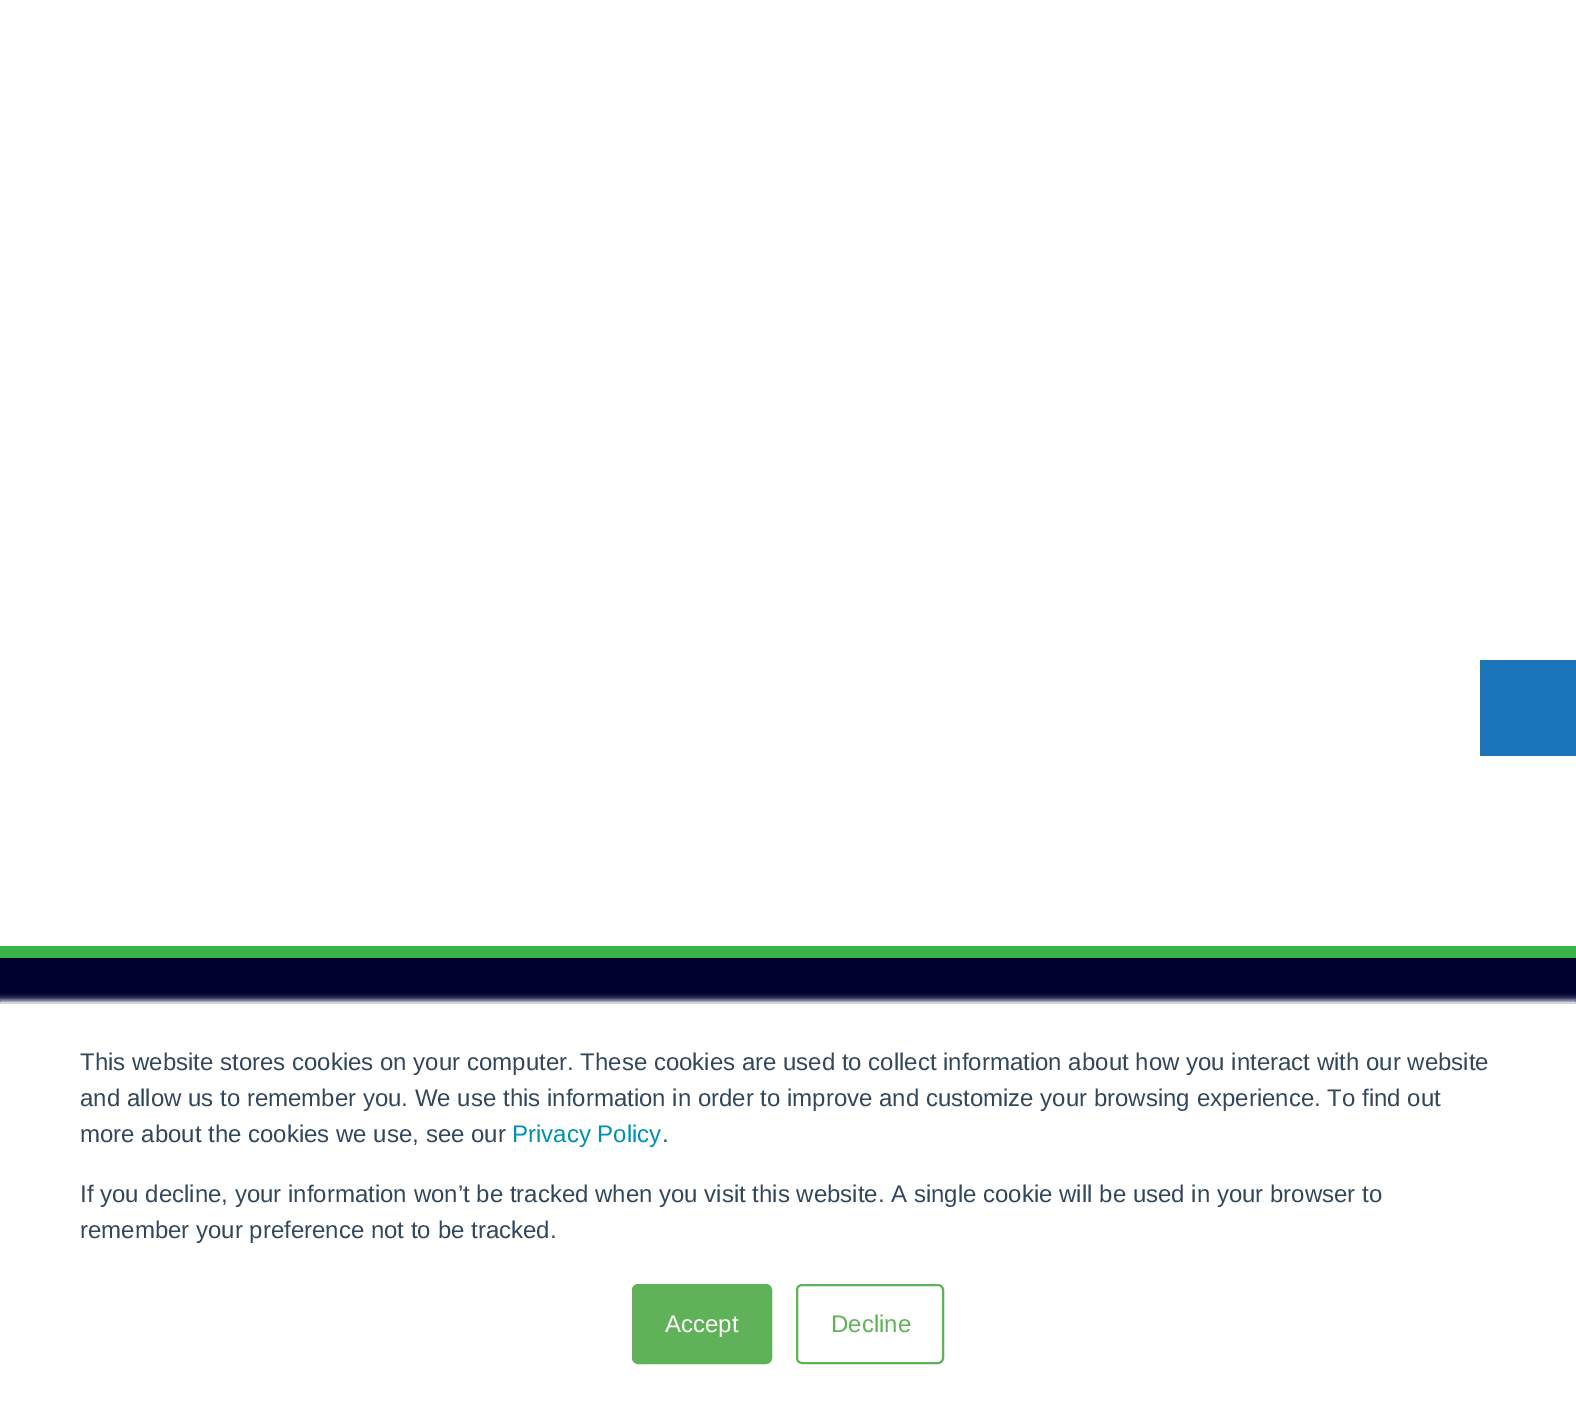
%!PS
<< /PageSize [1576 1415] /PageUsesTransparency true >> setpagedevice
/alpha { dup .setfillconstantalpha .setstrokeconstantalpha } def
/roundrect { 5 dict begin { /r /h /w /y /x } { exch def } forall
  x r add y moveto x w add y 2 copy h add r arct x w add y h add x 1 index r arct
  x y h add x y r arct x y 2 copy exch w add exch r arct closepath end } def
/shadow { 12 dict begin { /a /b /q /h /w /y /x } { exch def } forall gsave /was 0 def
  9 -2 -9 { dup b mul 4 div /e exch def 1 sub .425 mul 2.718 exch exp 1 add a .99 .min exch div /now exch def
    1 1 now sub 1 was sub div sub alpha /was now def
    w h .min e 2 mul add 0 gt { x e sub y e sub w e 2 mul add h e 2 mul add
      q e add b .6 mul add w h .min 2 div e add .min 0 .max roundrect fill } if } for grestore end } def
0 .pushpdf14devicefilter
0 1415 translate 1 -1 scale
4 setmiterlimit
1 setgray
0 0 1576 1415 rectfill
0.106 0.459 0.733 setrgbcolor
1480 660 96 96 rectfill
0 0 0.184 setrgbcolor
0 958 1576 44 rectfill
0.22 0.706 0.286 setrgbcolor
0 946 1576 12 rectfill
0.918 0.941 0.965 setrgbcolor
0 1000 1576 414 0 3 1 shadow
1 setgray
0 1004 1576 411 rectfill
0.796 0.839 0.886 setrgbcolor
0 1002 1576 2 rectfill
/LiberationSans-Regular [24 0 0 -24 0 0] selectfont
0.2 0.278 0.357 setrgbcolor
80 1070 moveto (This website stores cookies on your computer. These cookies are used to collect information about how you interact with our website) show
80 1106 moveto (and allow us to remember you. We use this information in order to improve and customize your browsing experience. To find out) show
80 1142 moveto (more about the cookies we use, see our) show
0 0.569 0.682 setrgbcolor
512 1142 moveto (Privacy Policy) show
0.2 0.278 0.357 setrgbcolor
662 1142 moveto (.) show
80 1202 moveto (If you decline, your information won’t be tracked when you visit this website. A single cookie will be used in your browser to) show
80 1238 moveto (remember your preference not to be tracked.) show
0.376 0.698 0.345 setrgbcolor
633 1285 138 78 5 roundrect gsave fill grestore
2 setlinewidth
stroke
1 setgray
665 1332 moveto (Accept) show
0.376 0.698 0.345 setrgbcolor
797 1285 146 78 5 roundrect stroke
831 1332 moveto (Decline) show
.poppdf14devicefilter showpage
